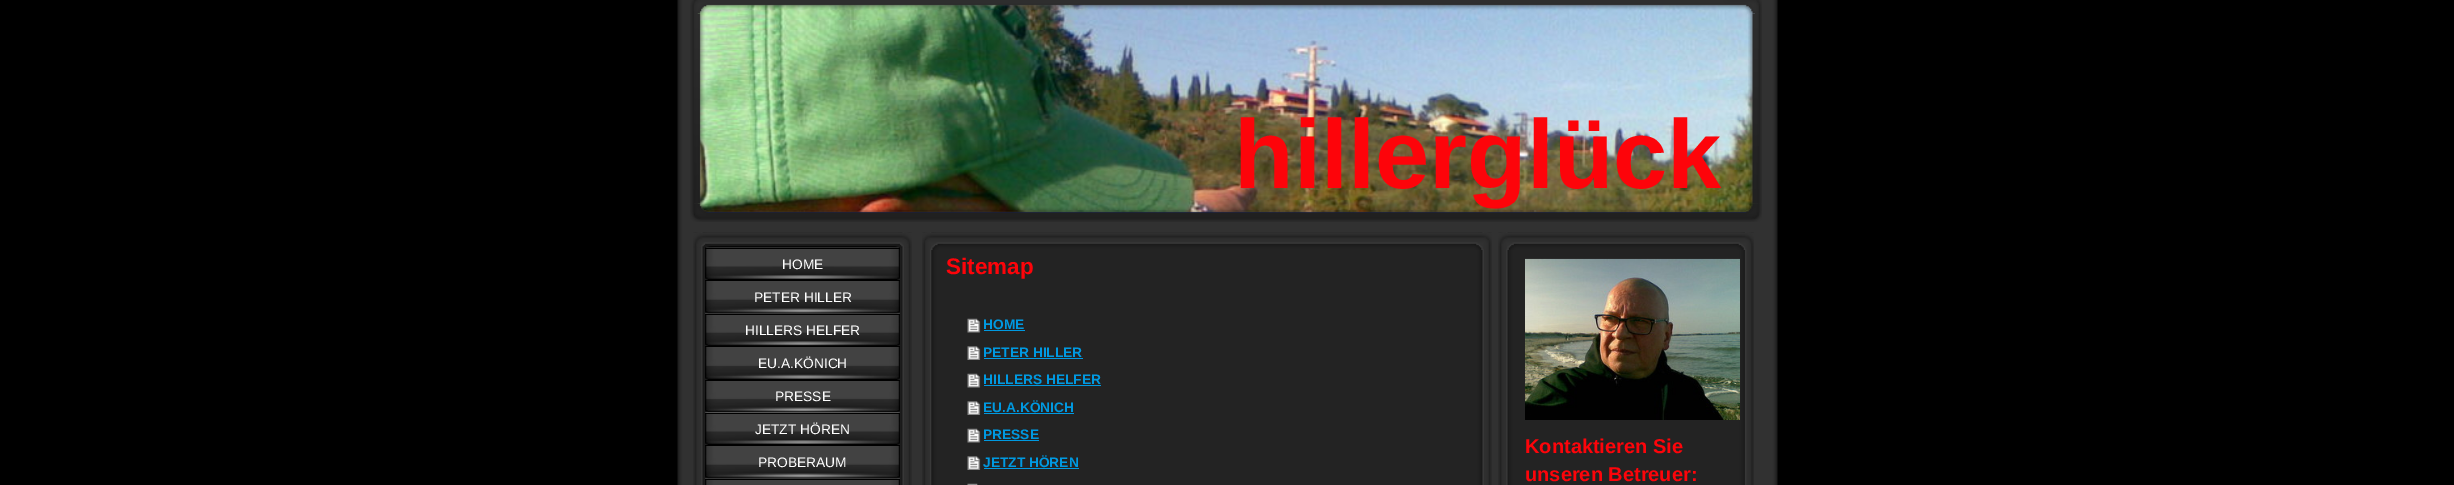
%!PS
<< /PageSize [2454 485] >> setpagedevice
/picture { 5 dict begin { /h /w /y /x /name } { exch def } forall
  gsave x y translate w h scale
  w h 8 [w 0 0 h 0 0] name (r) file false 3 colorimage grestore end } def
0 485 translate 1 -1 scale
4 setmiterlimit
0 setgray
0 0 2454 485 rectfill
(img1.rgb) 677 0 1101 485 picture
(img4.rgb) 697 4 1058 209 picture
(img3.rgb) 690 13 15 191 picture
/LiberationSans-Bold [97.5 0 0 -97.5 0 0] selectfont
0.992 0.016 0.039 setrgbcolor
1234 188 moveto (hillerglück) show
(img6.rgb) 690 203 1072 19 picture
(img5.rgb) 1748 13 14 191 picture
(img2.rgb) 690 0 1072 14 picture
(img7.rgb) 693 232 219 253 picture
(img8.rgb) 693 232 219 16 picture
(img9.rgb) 705 247 195 33 picture
0 setgray
705 248 195 1 rectfill
/LiberationSans-Regular [13.75 0 0 -13.75 0 0] selectfont
1 setgray
782 269 moveto (HOME) show
(img10.rgb) 705 281 195 33 picture
0 setgray
705 280 195 1 rectfill
1 setgray
754 302 moveto (PETER HILLER) show
(img11.rgb) 705 313 195 33 picture
0 setgray
705 314 195 1 rectfill
1 setgray
745 335 moveto (HILLERS HELFER) show
(img12.rgb) 705 347 195 33 picture
0 setgray
705 346 195 1 rectfill
1 setgray
758 368 moveto (EU.A.KÖNICH) show
(img13.rgb) 705 381 195 32 picture
0 setgray
705 380 195 1 rectfill
1 setgray
775 401 moveto (PRESSE) show
(img14.rgb) 705 412 195 33 picture
0 setgray
705 413 195 1 rectfill
1 setgray
755 434 moveto (JETZT HÖREN) show
(img10.rgb) 705 446 195 33 picture
0 setgray
705 445 195 1 rectfill
1 setgray
758 467 moveto (PROBERAUM) show
(img15.rgb) 705 478 195 7 picture
0 setgray
705 479 195 1 rectfill
(img16.rgb) 922 232 570 253 picture
(img17.rgb) 922 232 570 18 picture
/LiberationSans-Bold [22.5 0 0 -22.5 0 0] selectfont
0.992 0.016 0.039 setrgbcolor
946 274 moveto (Sitemap) show
(img18.rgb) 967 318 14 15 picture
/LiberationSans-Bold [13.75 0 0 -13.75 0 0] selectfont
0 0.6 0.882 setrgbcolor
983 329 moveto (HOME) show
984 330 41 1 rectfill
(img19.rgb) 967 346 14 14 picture
983 357 moveto (PETER HILLER) show
984 358 99 1 rectfill
(img18.rgb) 967 373 14 15 picture
983 384 moveto (HILLERS HELFER) show
984 385 117 1 rectfill
(img19.rgb) 967 401 14 14 picture
983 412 moveto (EU.A.KÖNICH) show
984 413 90 1 rectfill
(img18.rgb) 967 428 14 15 picture
983 439 moveto (PRESSE) show
984 440 55 1 rectfill
(img19.rgb) 967 456 14 14 picture
983 467 moveto (JETZT HÖREN) show
984 468 95 1 rectfill
(img20.rgb) 967 483 11 2 picture
(img21.rgb) 1498 232 256 253 picture
(img22.rgb) 1498 232 256 18 picture
(img23.rgb) 1525 258 215 162 picture
/LiberationSans-Bold [20 0 0 -20 0 0] selectfont
0.992 0.016 0.039 setrgbcolor
1525 453 moveto (Kontaktieren Sie) show
1525 481 moveto (unseren Betreuer:) show
showpage
